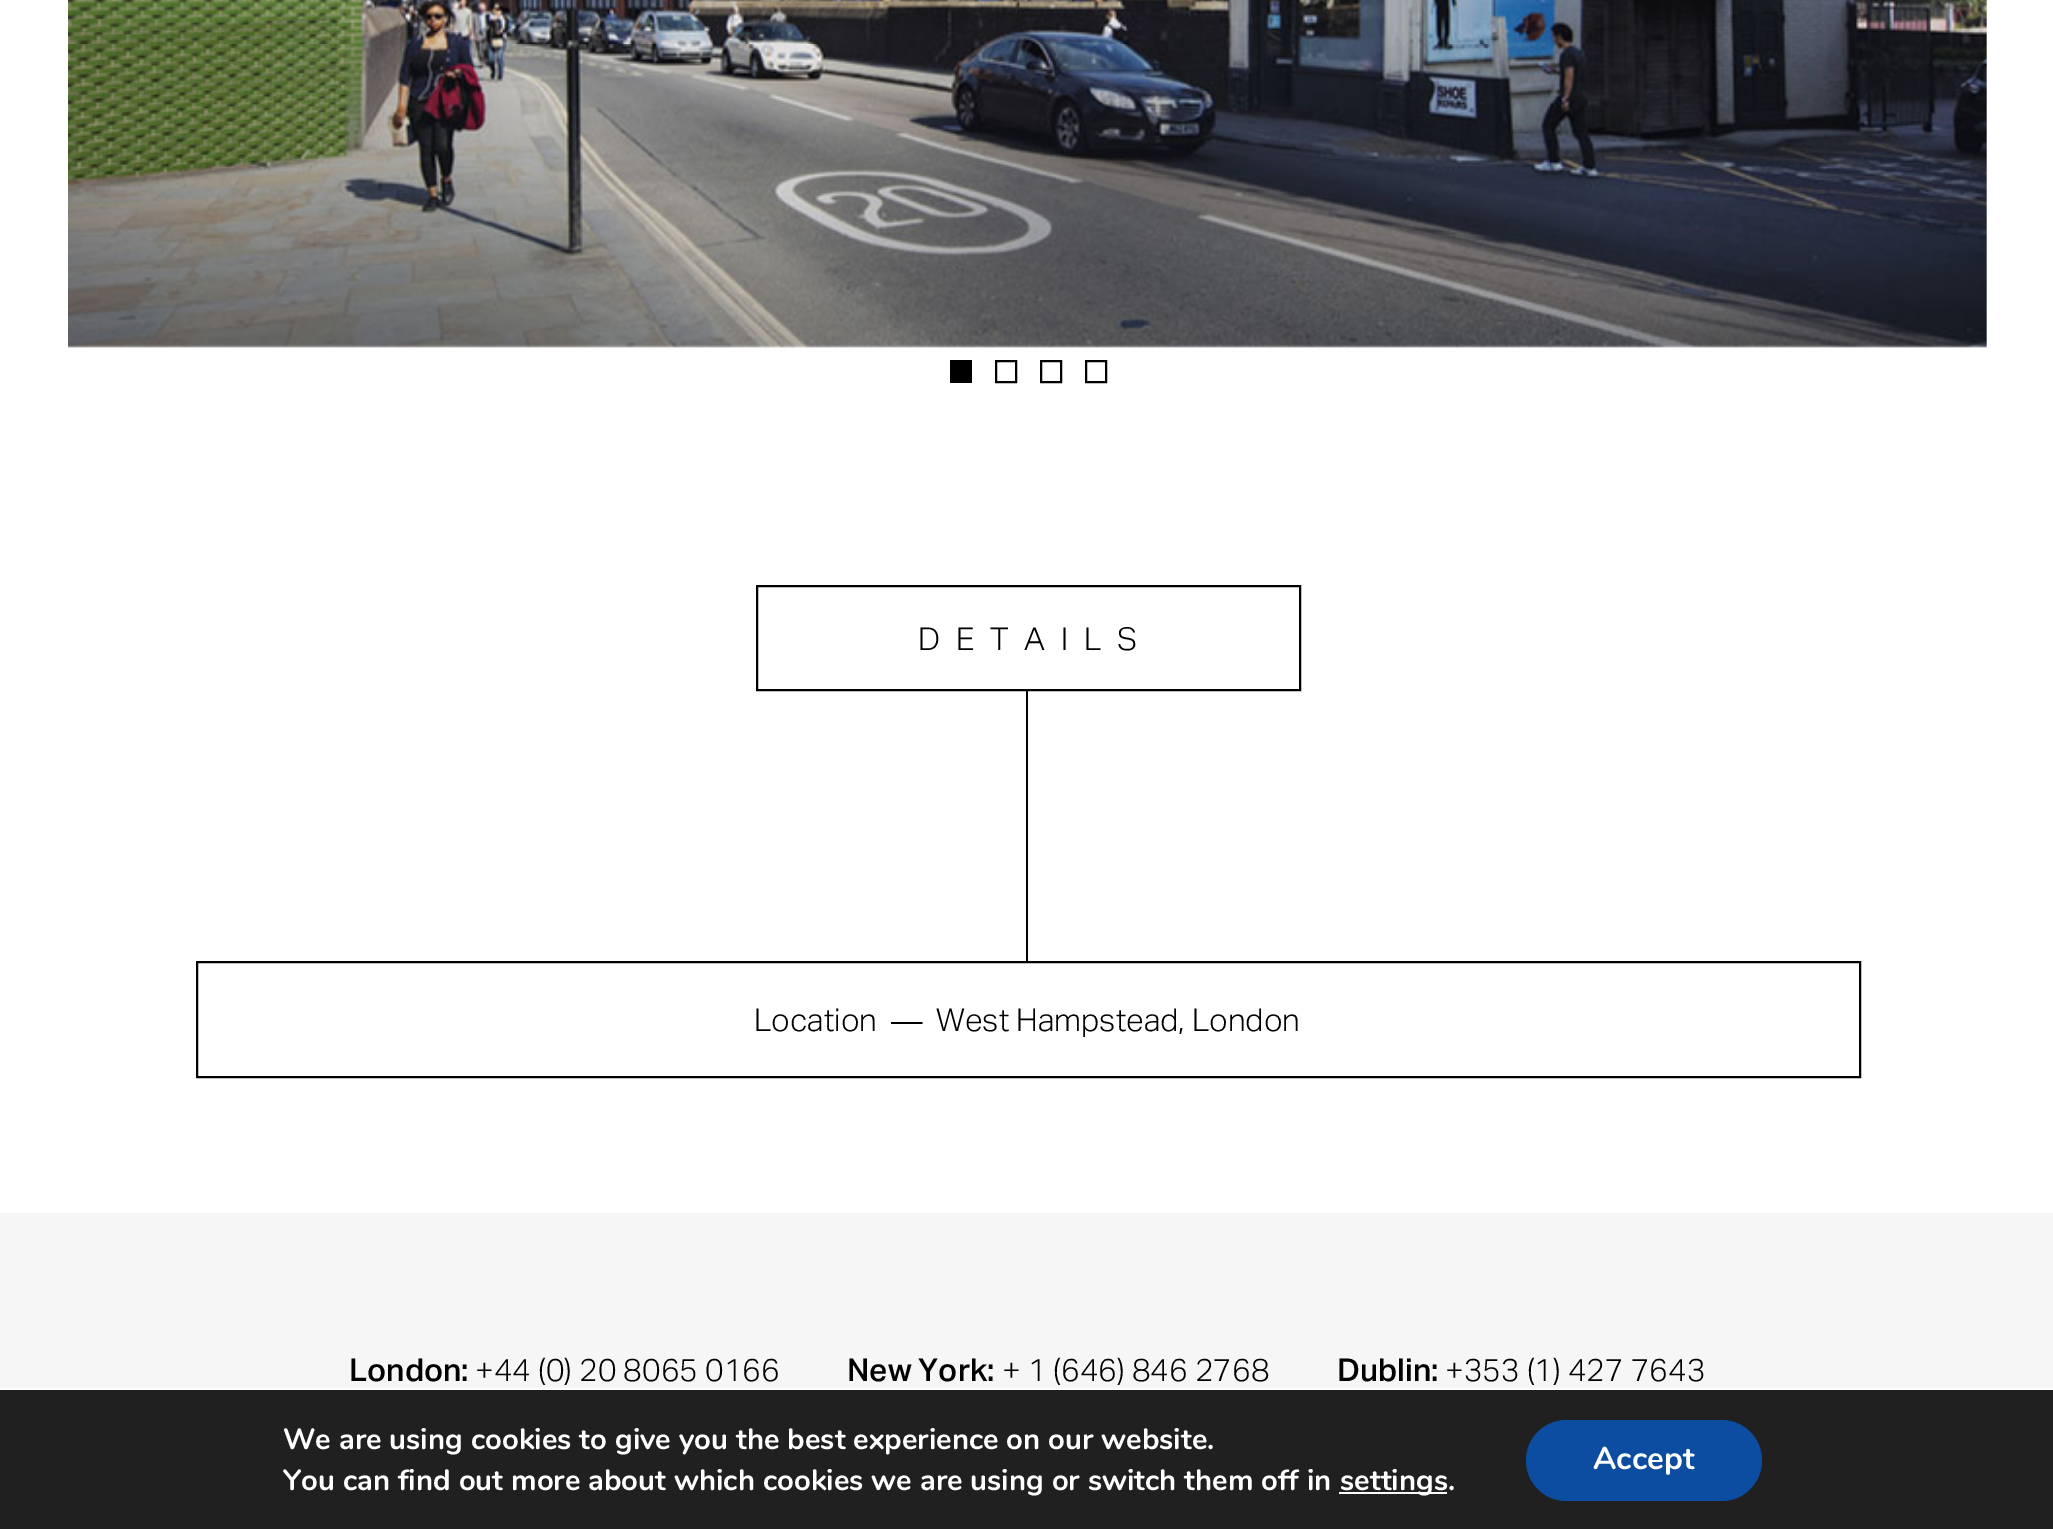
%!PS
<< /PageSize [2053 1529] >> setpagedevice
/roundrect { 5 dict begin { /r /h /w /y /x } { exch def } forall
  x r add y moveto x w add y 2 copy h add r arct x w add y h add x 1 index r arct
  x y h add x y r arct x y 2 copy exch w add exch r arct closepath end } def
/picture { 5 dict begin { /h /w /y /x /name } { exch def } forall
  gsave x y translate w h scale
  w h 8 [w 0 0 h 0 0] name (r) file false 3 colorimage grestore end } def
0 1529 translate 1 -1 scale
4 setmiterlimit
1 setgray
0 0 2053 1529 rectfill
(img1.rgb) 68 0 1919 348 picture
0 setgray
950 360 22 23 rectfill
2 setlinewidth
996 361 20 21 rectstroke
1041 361 20 21 rectstroke
1086 361 20 21 rectstroke
757 586 543 104 rectstroke
/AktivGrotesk-Light [31.5 0 0 -31.5 0 0] selectfont
918 650 moveto 15.75 0 (DETAILS) ashow
1026 691 2 270 rectfill
197 962 1663 115 rectstroke
754 1031 moveto (Location) show
/LiberationSans-Regular [31.5 0 0 -31.5 0 0] selectfont
891 1031 moveto (―) show
/AktivGrotesk-Light [31.5 0 0 -31.5 0 0] selectfont
936 1031 moveto (West Hampstead, London) show
0.965 setgray
0 1213 2053 175 rectfill
/AktivGrotesk-Medium [31.5 0 0 -31.5 0 0] selectfont
0 setgray
349 1381 moveto (London:) show
/AktivGrotesk-Light [31.5 0 0 -31.5 0 0] selectfont
475 1381 moveto (+44 \(0\) 20 8065 0166) show
/AktivGrotesk-Medium [31.5 0 0 -31.5 0 0] selectfont
847 1381 moveto (New York:) show
/AktivGrotesk-Light [31.5 0 0 -31.5 0 0] selectfont
1002 1381 moveto (+ 1 \(646\) 846 2768) show
/AktivGrotesk-Medium [31.5 0 0 -31.5 0 0] selectfont
1337 1381 moveto (Dublin:) show
/AktivGrotesk-Light [31.5 0 0 -31.5 0 0] selectfont
1445 1381 moveto (+353 \(1\) 427 7643) show
0.125 setgray
0 1390 2053 139 rectfill
/Nunito-Bold [29.25 0 0 -29.25 0 0] selectfont
1 setgray
283 1449 moveto (We are using cookies to give you the best experience on our website.) show
283 1490 moveto (You can find out more about which cookies we are using or switch them off in) show
1339 1492 108 2 rectfill
1340 1490 moveto (settings) show
1448 1490 moveto (.) show
0.047 0.302 0.635 setrgbcolor
1526 1420 236 81 40.5 roundrect fill
/Nunito-Bold [31.5 0 0 -31.5 0 0] selectfont
1 setgray
1593 1469 moveto (Accept) show
showpage
